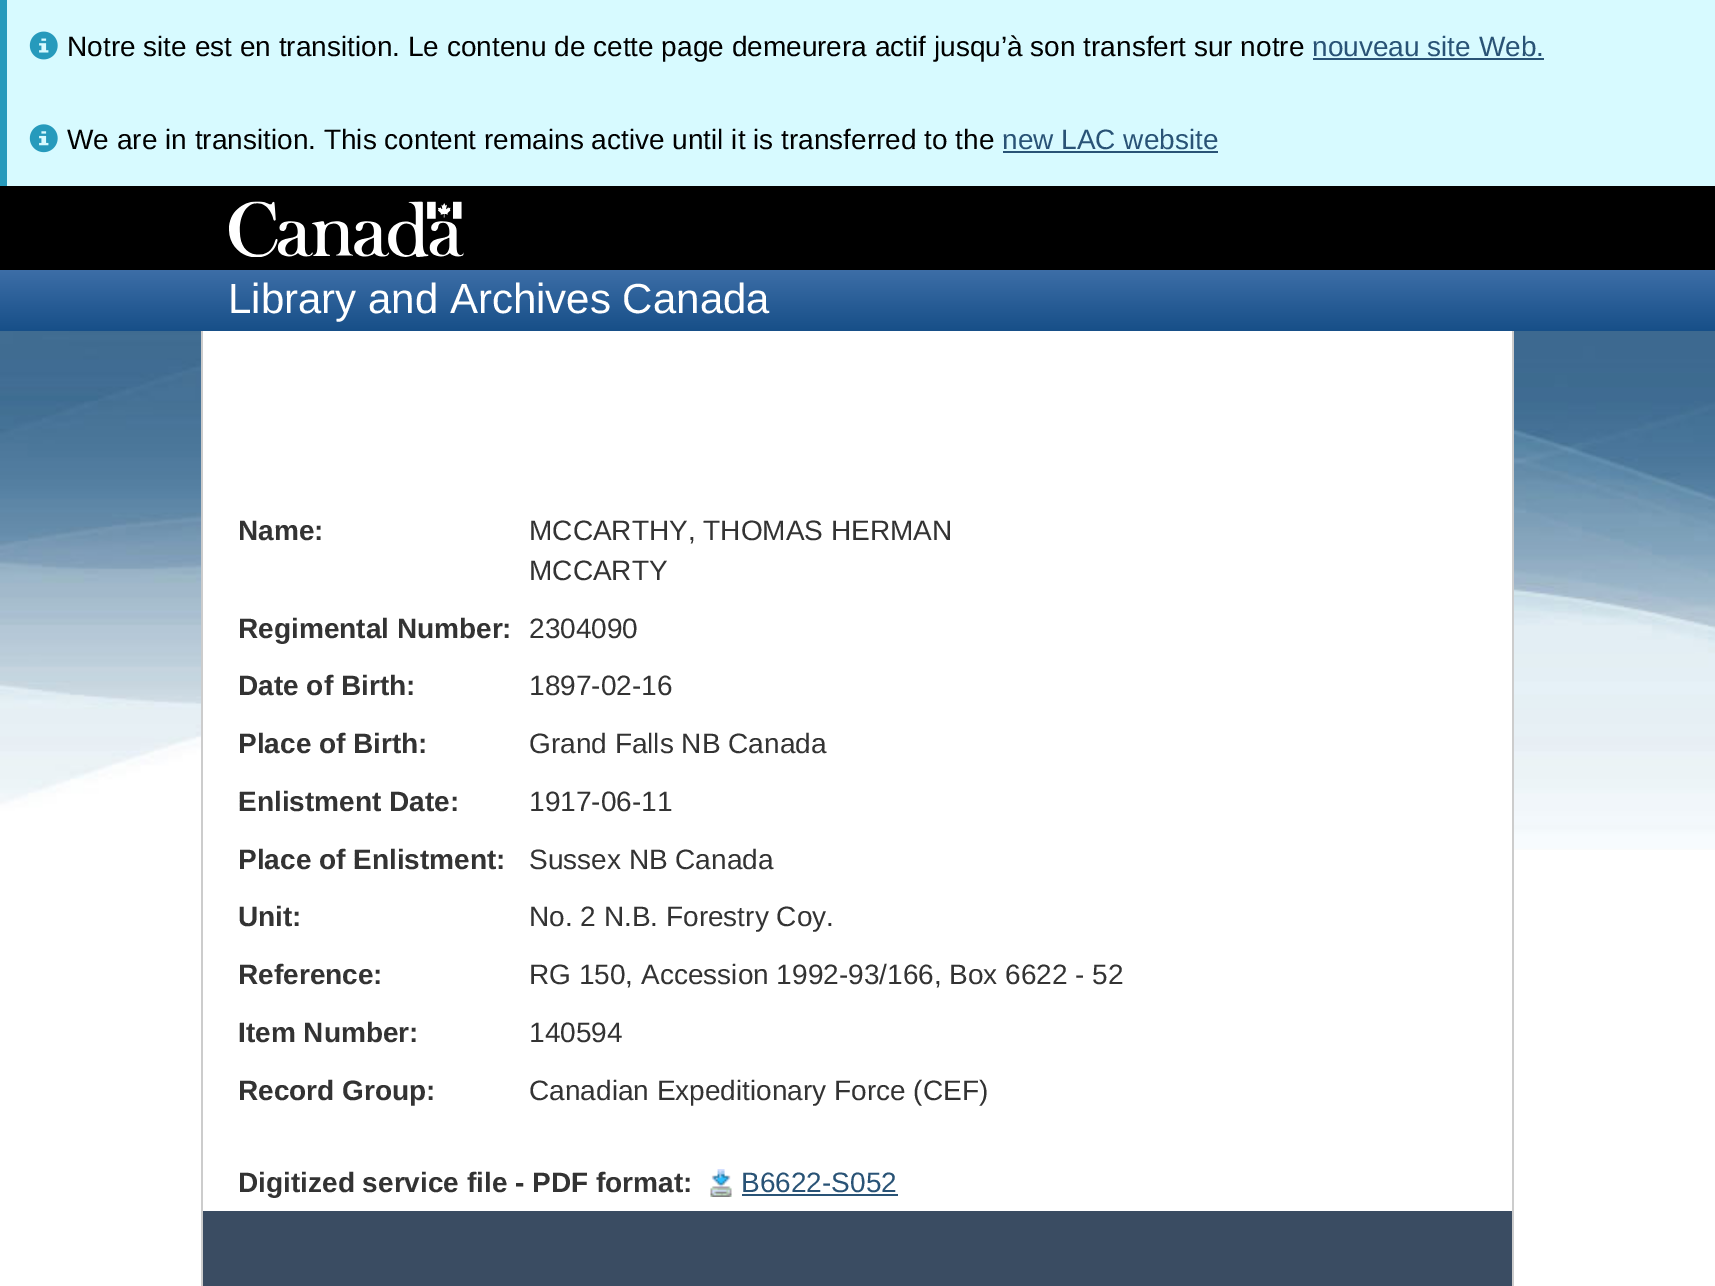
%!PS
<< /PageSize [1715 1286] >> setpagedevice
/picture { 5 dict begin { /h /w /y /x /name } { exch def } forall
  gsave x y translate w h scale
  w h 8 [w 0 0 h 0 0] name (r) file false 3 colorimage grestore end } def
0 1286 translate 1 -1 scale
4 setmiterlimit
1 setgray
0 0 1715 1286 rectfill
0.843 0.98 1 setrgbcolor
7 0 1708 186 rectfill
0.149 0.604 0.737 setrgbcolor
0 0 7 186 rectfill
(img1.rgb) 29 31 29 29 picture
/LiberationSans-Regular [28 0 0 -28 0 0] selectfont
0 setgray
67 56 moveto (Notre site est en transition. Le contenu de cette page demeurera actif jusqu’à son transfert sur notre) show
0.161 0.325 0.463 setrgbcolor
1312 56 moveto (nouveau site Web.) show
1313 58 231 2 rectfill
(img2.rgb) 29 124 29 29 picture
0 setgray
67 149 moveto (We are in transition. This content remains active until it is transferred to the) show
0.161 0.325 0.463 setrgbcolor
1002 149 moveto (new LAC website) show
1003 151 215 2 rectfill
(img3.rgb) 0 331 1715 519 picture
gsave newpath 0 270 moveto 1715 270 lineto 1715 331 lineto 0 331 lineto closepath clip newpath
<< /ShadingType 2 /ColorSpace /DeviceRGB /Coords [858 185 858 331] /Extend [true true] /Function << /FunctionType 3 /Domain [0 1] /Functions [<< /FunctionType 2 /Domain [0 1] /C0 [0.267 0.455 0.678] /C1 [0.267 0.455 0.678] /N 1 >> << /FunctionType 2 /Domain [0 1] /C0 [0.267 0.455 0.678] /C1 [0.09 0.31 0.533] /N 1 >>] /Bounds [0.5] /Encode [0 1 0 1] >> >> shfill grestore
0 setgray
0 186 1715 84 rectfill
(img4.rgb) 229 201 235 56 picture
/LiberationSans-Regular [42 0 0 -42 0 0] selectfont
1 setgray
228 313 moveto (Library and Archives Canada) show
203 331 1309 519 rectfill
0.8 setgray
1512 331 2 955 rectfill
201 331 2 955 rectfill
/LiberationSans-Bold [28 0 0 -28 0 0] selectfont
0.2 setgray
238 540 moveto (Name:) show
/LiberationSans-Regular [28 0 0 -28 0 0] selectfont
529 540 moveto (MCCARTHY, THOMAS HERMAN) show
529 580 moveto (MCCARTY) show
/LiberationSans-Bold [28 0 0 -28 0 0] selectfont
238 638 moveto (Regimental Number:) show
/LiberationSans-Regular [28 0 0 -28 0 0] selectfont
529 638 moveto (2304090) show
/LiberationSans-Bold [28 0 0 -28 0 0] selectfont
238 695 moveto (Date of Birth:) show
/LiberationSans-Regular [28 0 0 -28 0 0] selectfont
529 695 moveto (1897-02-16) show
/LiberationSans-Bold [28 0 0 -28 0 0] selectfont
238 753 moveto (Place of Birth:) show
/LiberationSans-Regular [28 0 0 -28 0 0] selectfont
529 753 moveto (Grand Falls NB Canada) show
/LiberationSans-Bold [28 0 0 -28 0 0] selectfont
238 811 moveto (Enlistment Date:) show
/LiberationSans-Regular [28 0 0 -28 0 0] selectfont
529 811 moveto (1917-06-11) show
/LiberationSans-Bold [28 0 0 -28 0 0] selectfont
238 869 moveto (Place of Enlistment:) show
/LiberationSans-Regular [28 0 0 -28 0 0] selectfont
529 869 moveto (Sussex NB Canada) show
/LiberationSans-Bold [28 0 0 -28 0 0] selectfont
238 926 moveto (Unit:) show
/LiberationSans-Regular [28 0 0 -28 0 0] selectfont
529 926 moveto (No. 2 N.B. Forestry Coy.) show
/LiberationSans-Bold [28 0 0 -28 0 0] selectfont
238 984 moveto (Reference:) show
/LiberationSans-Regular [28 0 0 -28 0 0] selectfont
529 984 moveto (RG 150, Accession 1992-93/166, Box 6622 - 52) show
/LiberationSans-Bold [28 0 0 -28 0 0] selectfont
238 1042 moveto (Item Number:) show
/LiberationSans-Regular [28 0 0 -28 0 0] selectfont
529 1042 moveto (140594) show
/LiberationSans-Bold [28 0 0 -28 0 0] selectfont
238 1100 moveto (Record Group:) show
/LiberationSans-Regular [28 0 0 -28 0 0] selectfont
529 1100 moveto (Canadian Expeditionary Force \(CEF\)) show
/LiberationSans-Bold [28 0 0 -28 0 0] selectfont
238 1192 moveto (Digitized service file - PDF format:) show
(img5.rgb) 710 1169 22 28 picture
/LiberationSans-Regular [28 0 0 -28 0 0] selectfont
0.161 0.325 0.463 setrgbcolor
741 1192 moveto (B6622-S052) show
742 1194 156 2 rectfill
0.227 0.298 0.384 setrgbcolor
203 1211 1309 75 rectfill
showpage
